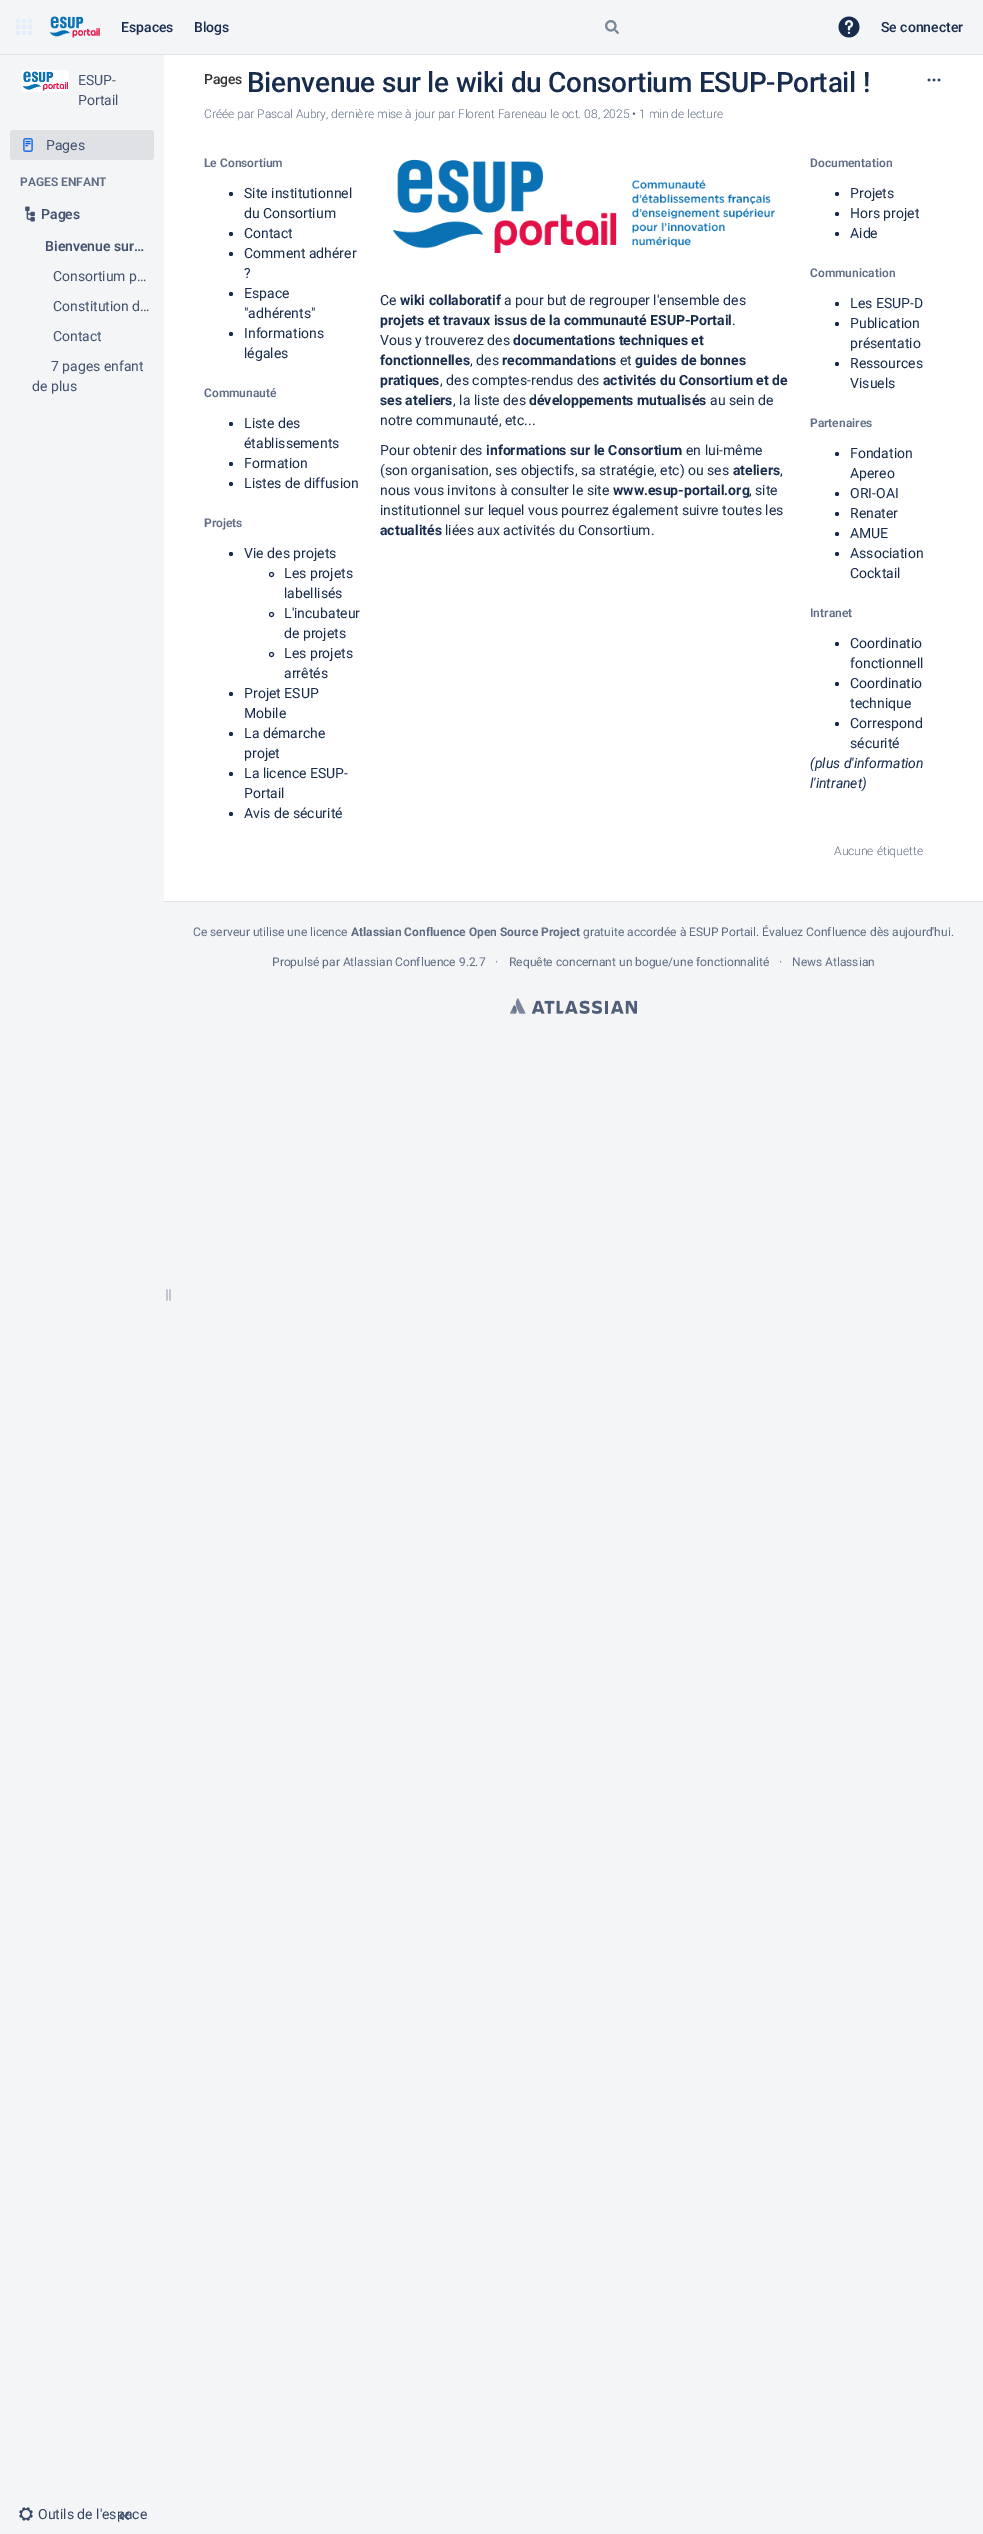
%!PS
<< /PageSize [983 2534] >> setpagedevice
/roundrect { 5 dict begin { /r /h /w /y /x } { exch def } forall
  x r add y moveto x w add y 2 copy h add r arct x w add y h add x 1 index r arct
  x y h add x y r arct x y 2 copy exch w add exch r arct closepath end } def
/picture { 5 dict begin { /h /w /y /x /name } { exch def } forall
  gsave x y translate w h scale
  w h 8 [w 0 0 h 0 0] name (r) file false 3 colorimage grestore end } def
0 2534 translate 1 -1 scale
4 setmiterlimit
0.957 0.961 0.969 setrgbcolor
0 0 983 2534 rectfill
0.875 0.882 0.902 setrgbcolor
0 54 983 1 rectfill
(img1.rgb) 16 19 16 16 picture
(img2.rgb) 49 16 51 22 picture
/Roboto-Medium [14 0 0 -14 0 0] selectfont
0.09 0.169 0.302 setrgbcolor
121 32 moveto (Espaces) show
194 32 moveto (Blogs) show
(img3.rgb) 605 20 14 14 picture
(img4.rgb) 838 16 22 22 picture
881 32 moveto (Se connecter) show
1 setgray
21 70 48 22 3 roundrect fill
(img5.rgb) 23 71 45 20 picture
/Roboto-Regular [14 0 0 -14 0 0] selectfont
0.259 0.322 0.431 setrgbcolor
78 85 moveto (ESUP-) show
78 105 moveto (Portail) show
0.875 0.882 0.898 setrgbcolor
10 130 144 30 3 roundrect fill
(img6.rgb) 23 138 10 14 picture
0.259 0.322 0.431 setrgbcolor
46 150 moveto (Pages) show
/Roboto-SemiBold [12 0 0 -12 0 0] selectfont
0.369 0.424 0.518 setrgbcolor
20 186 moveto (PAGES ENFANT) show
(img7.rgb) 25 206 10 16 picture
/Roboto-SemiBold [14 0 0 -14 0 0] selectfont
0.259 0.322 0.431 setrgbcolor
41 219 moveto (Pages) show
45 251 moveto (Bienvenue sur…) show
/Roboto-Regular [14 0 0 -14 0 0] selectfont
53 281 moveto (Consortium p…) show
53 311 moveto (Constitution d…) show
53 341 moveto (Contact) show
51 371 moveto (7 pages enfant) show
32 391 moveto (de plus) show
(img8.rgb) 166 1289 5 12 picture
(img9.rgb) 19 2507 14 14 picture
0.204 0.271 0.388 setrgbcolor
38 2519 moveto (Outils de l'espace) show
(img10.rgb) 119 2512 10 8 picture
1 setgray
164 55 819 846 rectfill
0.875 0.882 0.902 setrgbcolor
164 901 819 1 rectfill
/Roboto-Medium [14 0 0 -14 0 0] selectfont
0.2 setgray
204 84 moveto -0.28 0 (Pages) ashow
/Roboto-Medium [28 0 0 -28 0 0] selectfont
0.09 0.169 0.302 setrgbcolor
247 92 moveto -0.28 0 (Bienvenue sur le wiki du Consortium ESUP-Portail !) ashow
(img11.rgb) 927 78 14 4 picture
/Roboto-Light [12 0 0 -12 0 0] selectfont
0.369 0.424 0.518 setrgbcolor
204 118 moveto (Créée par Pascal Aubry, dernière mise à jour par Florent Fareneau le oct. 08, 2025) show
0.259 0.322 0.431 setrgbcolor
632 118 moveto (•) show
0.369 0.424 0.518 setrgbcolor
639 118 moveto (1 min de lecture) show
/Roboto-SemiBold [12 0 0 -12 0 0] selectfont
204 167 moveto (Le Consortium) show
0.09 0.169 0.302 setrgbcolor
newpath 231 194 2 0 360 arc closepath fill
/Roboto-Regular [14 0 0 -14 0 0] selectfont
244 198 moveto (Site institutionnel) show
244 218 moveto (du Consortium) show
newpath 231 234 2 0 360 arc closepath fill
244 238 moveto (Contact) show
newpath 231 254 2 0 360 arc closepath fill
244 258 moveto (Comment adhérer) show
244 278 moveto (?) show
newpath 231 294 2 0 360 arc closepath fill
244 298 moveto (Espace) show
244 318 moveto ("adhérents") show
newpath 231 334 2 0 360 arc closepath fill
244 338 moveto (Informations) show
244 358 moveto (légales) show
/Roboto-SemiBold [12 0 0 -12 0 0] selectfont
0.369 0.424 0.518 setrgbcolor
204 397 moveto (Communauté) show
0.09 0.169 0.302 setrgbcolor
newpath 231 424 2 0 360 arc closepath fill
/Roboto-Regular [14 0 0 -14 0 0] selectfont
244 428 moveto (Liste des) show
244 448 moveto (établissements) show
newpath 231 464 2 0 360 arc closepath fill
244 468 moveto (Formation) show
newpath 231 484 2 0 360 arc closepath fill
244 488 moveto (Listes de diffusion) show
/Roboto-SemiBold [12 0 0 -12 0 0] selectfont
0.369 0.424 0.518 setrgbcolor
204 527 moveto (Projets) show
0.09 0.169 0.302 setrgbcolor
newpath 231 554 2 0 360 arc closepath fill
/Roboto-Regular [14 0 0 -14 0 0] selectfont
244 558 moveto (Vie des projets) show
newpath 271.5 574.5 2 0 360 arc closepath stroke
284 578 moveto (Les projets) show
284 598 moveto (labellisés) show
newpath 271.5 614.5 2 0 360 arc closepath stroke
284 618 moveto (L'incubateur) show
284 638 moveto (de projets) show
newpath 271.5 654.5 2 0 360 arc closepath stroke
284 658 moveto (Les projets) show
284 678 moveto (arrêtés) show
newpath 231 694 2 0 360 arc closepath fill
244 698 moveto (Projet ESUP) show
244 718 moveto (Mobile) show
newpath 231 734 2 0 360 arc closepath fill
244 738 moveto (La démarche) show
244 758 moveto (projet) show
newpath 231 774 2 0 360 arc closepath fill
244 778 moveto (La licence ESUP-) show
244 798 moveto (Portail) show
newpath 231 814 2 0 360 arc closepath fill
244 818 moveto (Avis de sécurité) show
(img12.rgb) 393 159 382 94 picture
380 305 moveto (Ce) show
/Roboto-Bold [14 0 0 -14 0 0] selectfont
400 305 moveto (wiki collaboratif) show
/Roboto-Regular [14 0 0 -14 0 0] selectfont
504 305 moveto (a pour but de regrouper l'ensemble des) show
/Roboto-Bold [14 0 0 -14 0 0] selectfont
380 325 moveto (projets et travaux issus de la communauté ESUP-Portail) show
/Roboto-Regular [14 0 0 -14 0 0] selectfont
732 325 moveto (.) show
380 345 moveto (Vous y trouverez des) show
/Roboto-Bold [14 0 0 -14 0 0] selectfont
513 345 moveto (documentations techniques et) show
380 365 moveto (fonctionnelles) show
/Roboto-Regular [14 0 0 -14 0 0] selectfont
470 365 moveto (, des) show
/Roboto-Bold [14 0 0 -14 0 0] selectfont
502 365 moveto (recommandations) show
/Roboto-Regular [14 0 0 -14 0 0] selectfont
620 365 moveto (et) show
/Roboto-Bold [14 0 0 -14 0 0] selectfont
635 365 moveto (guides de bonnes) show
380 385 moveto (pratiques) show
/Roboto-Regular [14 0 0 -14 0 0] selectfont
440 385 moveto (, des comptes-rendus des) show
/Roboto-Bold [14 0 0 -14 0 0] selectfont
603 385 moveto (activités du Consortium et de) show
380 405 moveto (ses ateliers) show
/Roboto-Regular [14 0 0 -14 0 0] selectfont
453 405 moveto (, la liste des) show
/Roboto-Bold [14 0 0 -14 0 0] selectfont
529 405 moveto (développements mutualisés) show
/Roboto-Regular [14 0 0 -14 0 0] selectfont
710 405 moveto (au sein de) show
380 425 moveto (notre communauté, etc...) show
380 455 moveto (Pour obtenir des) show
/Roboto-Bold [14 0 0 -14 0 0] selectfont
486 455 moveto (informations sur le Consortium) show
/Roboto-Regular [14 0 0 -14 0 0] selectfont
686 455 moveto (en lui-même) show
380 475 moveto (\(son organisation, ses objectifs, sa stratégie, etc\) ou ses) show
/Roboto-Bold [14 0 0 -14 0 0] selectfont
733 475 moveto (ateliers) show
/Roboto-Regular [14 0 0 -14 0 0] selectfont
780 475 moveto (,) show
380 495 moveto (nous vous invitons à consulter le site) show
/Roboto-Bold [14 0 0 -14 0 0] selectfont
613 495 moveto (www.esup-portail.org) show
/Roboto-Regular [14 0 0 -14 0 0] selectfont
749 495 moveto (, site) show
380 515 moveto (institutionnel sur lequel vous pourrez également suivre toutes les) show
/Roboto-Bold [14 0 0 -14 0 0] selectfont
380 535 moveto (actualités) show
/Roboto-Regular [14 0 0 -14 0 0] selectfont
445 535 moveto (liées aux activités du Consortium.) show
/Roboto-SemiBold [12 0 0 -12 0 0] selectfont
0.369 0.424 0.518 setrgbcolor
810 167 moveto (Documentation) show
0.09 0.169 0.302 setrgbcolor
newpath 837 194 2 0 360 arc closepath fill
/Roboto-Regular [14 0 0 -14 0 0] selectfont
850 198 moveto (Projets) show
newpath 837 214 2 0 360 arc closepath fill
850 218 moveto (Hors projet) show
newpath 837 234 2 0 360 arc closepath fill
850 238 moveto (Aide) show
/Roboto-SemiBold [12 0 0 -12 0 0] selectfont
0.369 0.424 0.518 setrgbcolor
810 277 moveto (Communication) show
0.09 0.169 0.302 setrgbcolor
newpath 837 304 2 0 360 arc closepath fill
/Roboto-Regular [14 0 0 -14 0 0] selectfont
850 308 moveto (Les ESUP-D) show
newpath 837 324 2 0 360 arc closepath fill
850 328 moveto (Publication) show
850 348 moveto (présentatio) show
newpath 837 364 2 0 360 arc closepath fill
850 368 moveto (Ressources) show
850 388 moveto (Visuels) show
/Roboto-SemiBold [12 0 0 -12 0 0] selectfont
0.369 0.424 0.518 setrgbcolor
810 427 moveto (Partenaires) show
0.09 0.169 0.302 setrgbcolor
newpath 837 454 2 0 360 arc closepath fill
/Roboto-Regular [14 0 0 -14 0 0] selectfont
850 458 moveto (Fondation) show
850 478 moveto (Apereo) show
newpath 837 494 2 0 360 arc closepath fill
850 498 moveto (ORI-OAI) show
newpath 837 514 2 0 360 arc closepath fill
850 518 moveto (Renater) show
newpath 837 534 2 0 360 arc closepath fill
850 538 moveto (AMUE) show
newpath 837 554 2 0 360 arc closepath fill
850 558 moveto (Association) show
850 578 moveto (Cocktail) show
/Roboto-SemiBold [12 0 0 -12 0 0] selectfont
0.369 0.424 0.518 setrgbcolor
810 617 moveto (Intranet) show
0.09 0.169 0.302 setrgbcolor
newpath 837 644 2 0 360 arc closepath fill
/Roboto-Regular [14 0 0 -14 0 0] selectfont
850 648 moveto (Coordinatio) show
850 668 moveto (fonctionnell) show
newpath 837 684 2 0 360 arc closepath fill
850 688 moveto (Coordinatio) show
850 708 moveto (technique) show
newpath 837 724 2 0 360 arc closepath fill
850 728 moveto (Correspond) show
850 748 moveto (sécurité) show
/Roboto-Italic [14 0 0 -14 0 0] selectfont
810 768 moveto (\(plus d'information) show
810 788 moveto (l'intranet\)) show
/Roboto-Light [12 0 0 -12 0 0] selectfont
0.369 0.424 0.518 setrgbcolor
834 855 moveto (Aucune étiquette) show
/Roboto-Regular [12 0 0 -12 0 0] selectfont
193 936 moveto (Ce serveur utilise une licence) show
/Roboto-Bold [12 0 0 -12 0 0] selectfont
351 936 moveto (Atlassian Confluence Open Source Project) show
/Roboto-Regular [12 0 0 -12 0 0] selectfont
583 936 moveto (gratuite accordée à ESUP Portail. Évaluez Confluence dès aujourd'hui.) show
272 966 moveto (Propulsé par Atlassian Confluence 9.2.7) show
495 966 moveto (·) show
509 966 moveto (Requête concernant un bogue/une fonctionnalité) show
779 966 moveto (·) show
792 966 moveto (News Atlassian) show
(img13.rgb) 510 998 127 16 picture
showpage
